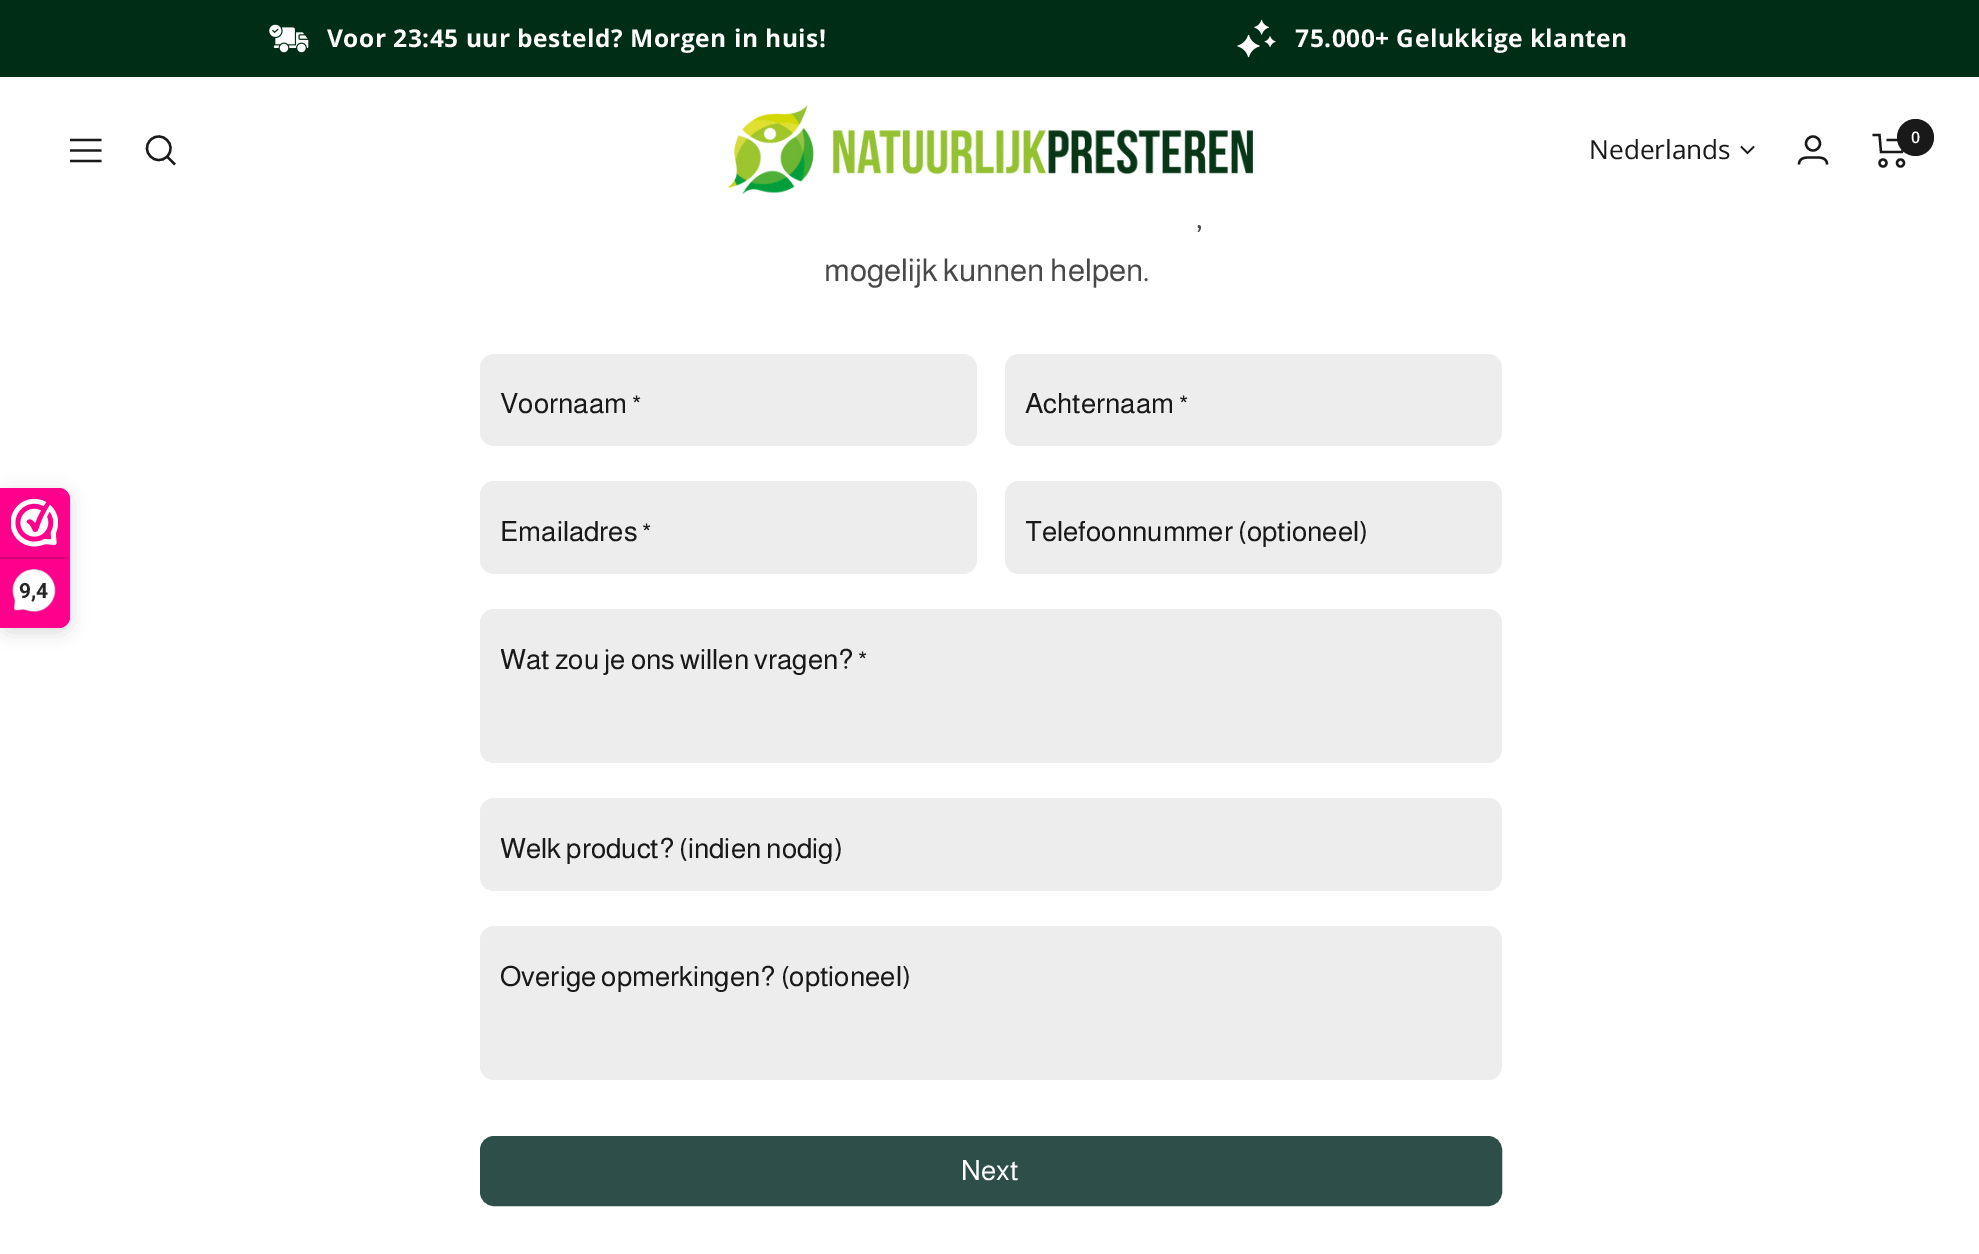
%!PS
<< /PageSize [1979 1254] /PageUsesTransparency true >> setpagedevice
/alpha { dup .setfillconstantalpha .setstrokeconstantalpha } def
/roundrect { 5 dict begin { /r /h /w /y /x } { exch def } forall
  x r add y moveto x w add y 2 copy h add r arct x w add y h add x 1 index r arct
  x y h add x y r arct x y 2 copy exch w add exch r arct closepath end } def
/shadow { 12 dict begin { /a /b /q /h /w /y /x } { exch def } forall gsave /was 0 def
  9 -2 -9 { dup b mul 4 div /e exch def 1 sub .425 mul 2.718 exch exp 1 add a .99 .min exch div /now exch def
    1 1 now sub 1 was sub div sub alpha /was now def
    w h .min e 2 mul add 0 gt { x e sub y e sub w e 2 mul add h e 2 mul add
      q e add b .6 mul add w h .min 2 div e add .min 0 .max roundrect fill } if } for grestore end } def
/picture { 5 dict begin { /h /w /y /x /name } { exch def } forall
  gsave x y translate w h scale
  w h 8 [w 0 0 h 0 0] name (r) file false 3 colorimage grestore end } def
0 .pushpdf14devicefilter
0 1254 translate 1 -1 scale
4 setmiterlimit
1 setgray
0 0 1979 1254 rectfill
0 0.176 0.082 setrgbcolor
0 0 1979 77 rectfill
(img1.rgb) 269 24 40 29 picture
/OpenSans-Bold [24.5 0 0 -24.5 0 0] selectfont
1 setgray
327 47 moveto 0.5 0 (Voor 23:45 uur besteld? Morgen in huis!) ashow
(img2.rgb) 1237 19 39 39 picture
1295 47 moveto 0.5 0 (75.000+ Gelukkige klanten) ashow
0.102 0.098 0.098 setrgbcolor
2.3 setlinewidth
newpath 70 140 moveto 101.5 140 lineto 70 161 moveto 101.5 161 lineto closepath 70 150.5 moveto 101.5 150.5 lineto closepath stroke
newpath 167 156.5 moveto 178 145.5 161.5 129 150.5 140 curveto 139.5 151 156 167.5 167 156.5 curveto closepath 167 156.5 moveto 175 164.5 lineto stroke
(img3.rgb) 728 105 525 89 picture
newpath 1813 143.5 7 0 360 arc closepath stroke
newpath 1799 164.5 moveto 1799 156.5 1807.5 157.5 1813 157.5 curveto 1818.5 157.5 1827 156.5 1827 164.5 curveto stroke
newpath 1872.5 135 moveto 1879.5 135 lineto 1881 152 lineto 1902 152 lineto 1906 140 lineto 1886.5 140 lineto stroke
newpath 1883 163 3.5 0 360 arc closepath stroke
newpath 1900.5 163 3.5 0 360 arc closepath stroke
newpath 1915.5 137.5 18.5 0 360 arc closepath fill
/OpenSans-SemiBold [16 0 0 -16 0 0] selectfont
1 setgray
1911 143 moveto (0) show
/OpenSans-Regular [26.25 0 0 -26.25 0 0] selectfont
0.102 0.098 0.098 setrgbcolor
1589 159 moveto (Nederlands) show
1.7 setlinewidth
newpath 1741 146.5 moveto 1747.5 153 lineto 1754 146.5 lineto stroke
0 setgray
0 492 70 140 11 9 0.15 shadow
0.996 0 0.549 setrgbcolor
newpath 0 488 moveto 59 488 lineto 65 488 70 493 70 499 curveto 70 617 lineto 70 623 65 628 59 628 curveto 0 628 lineto closepath fill
(img4.rgb) 11 499 47 48 picture
0.847 0 0.467 setrgbcolor
0 557 68 2 rectfill
(img5.rgb) 12 569 44 44 picture
/Roboto-Bold [21 0 0 -21 0 0] selectfont
0.153 0.149 0.149 setrgbcolor
19 598 moveto (9,4) show
/Almarai-Regular [31.5 0 0 -31.5 0 0] selectfont
0.286 setgray
1196 228 moveto (,) show
824 281 moveto (mogelijk kunnen helpen.) show
0.929 setgray
480 354 497 92 14 roundrect fill
/Almarai-Regular [28 0 0 -28 0 0] selectfont
0.102 0.098 0.098 setrgbcolor
500 413 moveto (Voornaam) show
/Almarai-Regular [24.5 0 0 -24.5 0 0] selectfont
632 413 moveto (*) show
0.929 setgray
1005 354 497 92 14 roundrect fill
/Almarai-Regular [28 0 0 -28 0 0] selectfont
0.102 0.098 0.098 setrgbcolor
1025 413 moveto (Achternaam) show
/Almarai-Regular [24.5 0 0 -24.5 0 0] selectfont
1179 413 moveto (*) show
0.929 setgray
480 481 497 93 14 roundrect fill
/Almarai-Regular [28 0 0 -28 0 0] selectfont
0.102 0.098 0.098 setrgbcolor
500 541 moveto (Emailadres) show
/Almarai-Regular [24.5 0 0 -24.5 0 0] selectfont
642 541 moveto (*) show
0.929 setgray
1005 481 497 93 14 roundrect fill
gsave
1026 509 341 44 rectclip
/Almarai-Regular [28 0 0 -28 0 0] selectfont
0.102 0.098 0.098 setrgbcolor
1025 541 moveto (Telefoonnummer \(optioneel\)) show
grestore
480 609 1022 154 14 roundrect fill
gsave
501 637 367 44 rectclip
/Almarai-Regular [28 0 0 -28 0 0] selectfont
0.102 0.098 0.098 setrgbcolor
500 669 moveto (Wat zou je ons willen vragen?) show
grestore
0.102 0.098 0.098 setrgbcolor
858 669 moveto (*) show
0.929 setgray
480 798 1022 93 14 roundrect fill
gsave
501 826 341 44 rectclip
/Almarai-Regular [28 0 0 -28 0 0] selectfont
0.102 0.098 0.098 setrgbcolor
500 858 moveto (Welk product? \(indien nodig\)) show
grestore
480 926 1022 154 14 roundrect fill
gsave
501 954 409 44 rectclip
/Almarai-Regular [28 0 0 -28 0 0] selectfont
0.102 0.098 0.098 setrgbcolor
500 986 moveto (Overige opmerkingen? \(optioneel\)) show
grestore
0.18 0.306 0.286 setrgbcolor
481 1137 1020 68 13 roundrect gsave fill grestore
2 setlinewidth
stroke
/Almarai-Regular [28 0 0 -28 0 0] selectfont
1 setgray
961 1180 moveto (Next) show
.poppdf14devicefilter showpage
